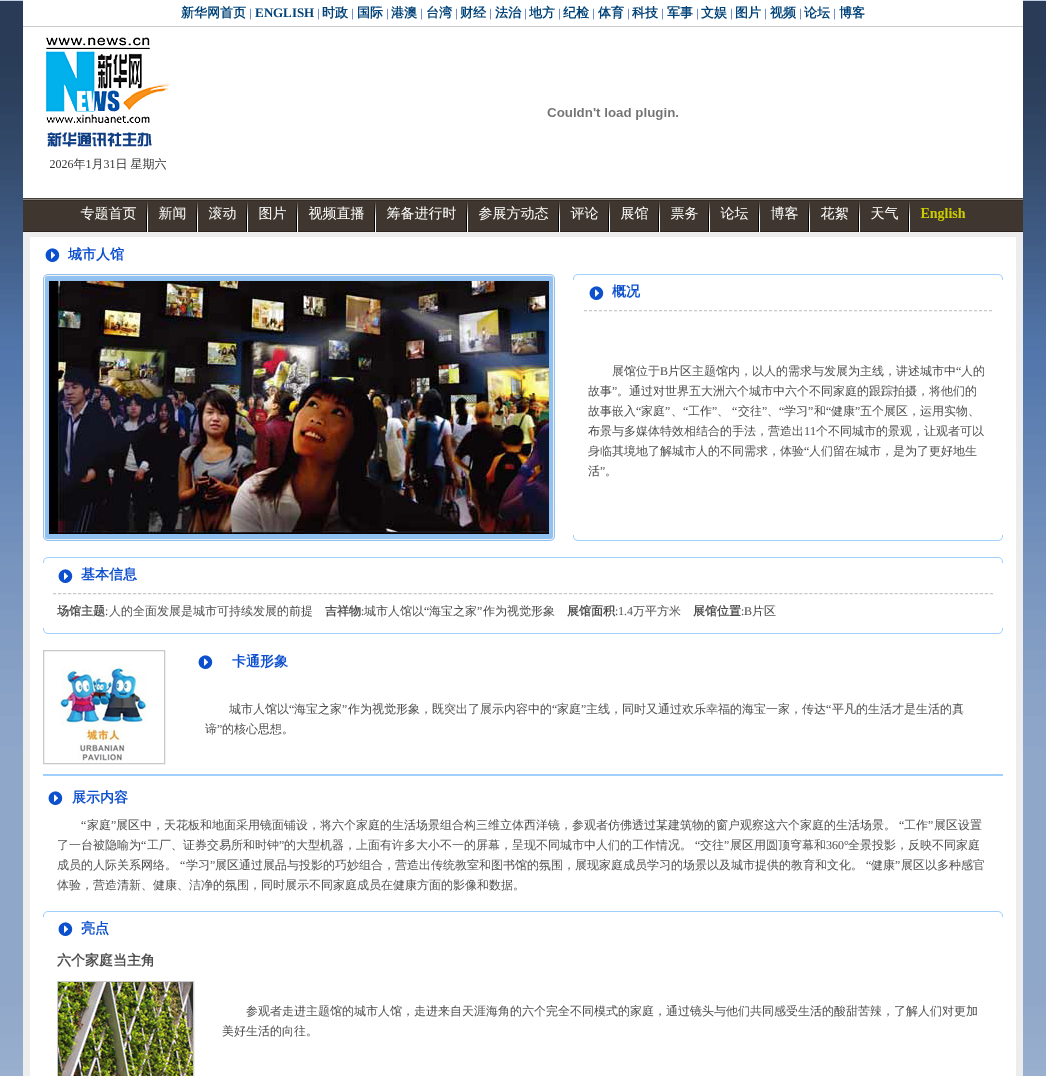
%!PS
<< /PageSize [1046 1076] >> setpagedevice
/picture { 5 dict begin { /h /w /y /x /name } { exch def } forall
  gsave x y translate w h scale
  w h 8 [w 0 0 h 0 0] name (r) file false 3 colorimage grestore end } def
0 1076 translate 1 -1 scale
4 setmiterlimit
0.761 0.812 0.886 setrgbcolor
0 0 1046 1076 rectfill
(img1.rgb) 0 1 1046 1075 picture
1 setgray
23 0 1000 26 rectfill
/WenQuanYiZenHei-Bold [13 0 0 -13 0 0] selectfont
0.008 0.263 0.475 setrgbcolor
181 17 moveto (新华网首页) show
/LiberationSerif-Regular [12 0 0 -12 0 0] selectfont
0 0.2 0.6 setrgbcolor
249 17 moveto (|) show
/LiberationSerif-Bold [13 0 0 -13 0 0] selectfont
0.008 0.263 0.475 setrgbcolor
255 17 moveto (ENGLISH) show
/LiberationSerif-Regular [12 0 0 -12 0 0] selectfont
0 0.2 0.6 setrgbcolor
317 17 moveto (|) show
/WenQuanYiZenHei-Bold [13 0 0 -13 0 0] selectfont
0.008 0.263 0.475 setrgbcolor
322 17 moveto (时政) show
/LiberationSerif-Regular [12 0 0 -12 0 0] selectfont
0 0.2 0.6 setrgbcolor
351 17 moveto (|) show
/WenQuanYiZenHei-Bold [13 0 0 -13 0 0] selectfont
0.008 0.263 0.475 setrgbcolor
357 17 moveto (国际) show
/LiberationSerif-Regular [12 0 0 -12 0 0] selectfont
0 0.2 0.6 setrgbcolor
386 17 moveto (|) show
/WenQuanYiZenHei-Bold [13 0 0 -13 0 0] selectfont
0.008 0.263 0.475 setrgbcolor
391 17 moveto (港澳) show
/LiberationSerif-Regular [12 0 0 -12 0 0] selectfont
0 0.2 0.6 setrgbcolor
420 17 moveto (|) show
/WenQuanYiZenHei-Bold [13 0 0 -13 0 0] selectfont
0.008 0.263 0.475 setrgbcolor
426 17 moveto (台湾) show
/LiberationSerif-Regular [12 0 0 -12 0 0] selectfont
0 0.2 0.6 setrgbcolor
455 17 moveto (|) show
/WenQuanYiZenHei-Bold [13 0 0 -13 0 0] selectfont
0.008 0.263 0.475 setrgbcolor
460 17 moveto (财经) show
/LiberationSerif-Regular [12 0 0 -12 0 0] selectfont
0 0.2 0.6 setrgbcolor
489 17 moveto (|) show
/WenQuanYiZenHei-Bold [13 0 0 -13 0 0] selectfont
0.008 0.263 0.475 setrgbcolor
495 17 moveto (法治) show
/LiberationSerif-Regular [12 0 0 -12 0 0] selectfont
0 0.2 0.6 setrgbcolor
524 17 moveto (|) show
/WenQuanYiZenHei-Bold [13 0 0 -13 0 0] selectfont
0.008 0.263 0.475 setrgbcolor
529 17 moveto (地方) show
/LiberationSerif-Regular [12 0 0 -12 0 0] selectfont
0 0.2 0.6 setrgbcolor
558 17 moveto (|) show
/WenQuanYiZenHei-Bold [13 0 0 -13 0 0] selectfont
0.008 0.263 0.475 setrgbcolor
563 17 moveto (纪检) show
/LiberationSerif-Regular [12 0 0 -12 0 0] selectfont
0 0.2 0.6 setrgbcolor
592 17 moveto (|) show
/WenQuanYiZenHei-Bold [13 0 0 -13 0 0] selectfont
0.008 0.263 0.475 setrgbcolor
598 17 moveto (体育) show
/LiberationSerif-Regular [12 0 0 -12 0 0] selectfont
0 0.2 0.6 setrgbcolor
627 17 moveto (|) show
/WenQuanYiZenHei-Bold [13 0 0 -13 0 0] selectfont
0.008 0.263 0.475 setrgbcolor
632 17 moveto (科技) show
/LiberationSerif-Regular [12 0 0 -12 0 0] selectfont
0 0.2 0.6 setrgbcolor
661 17 moveto (|) show
/WenQuanYiZenHei-Bold [13 0 0 -13 0 0] selectfont
0.008 0.263 0.475 setrgbcolor
667 17 moveto (军事) show
/LiberationSerif-Regular [12 0 0 -12 0 0] selectfont
0 0.2 0.6 setrgbcolor
696 17 moveto (|) show
/WenQuanYiZenHei-Bold [13 0 0 -13 0 0] selectfont
0.008 0.263 0.475 setrgbcolor
701 17 moveto (文娱) show
/LiberationSerif-Regular [12 0 0 -12 0 0] selectfont
0 0.2 0.6 setrgbcolor
730 17 moveto (|) show
/WenQuanYiZenHei-Bold [13 0 0 -13 0 0] selectfont
0.008 0.263 0.475 setrgbcolor
735 17 moveto (图片) show
/LiberationSerif-Regular [12 0 0 -12 0 0] selectfont
0 0.2 0.6 setrgbcolor
764 17 moveto (|) show
/WenQuanYiZenHei-Bold [13 0 0 -13 0 0] selectfont
0.008 0.263 0.475 setrgbcolor
770 17 moveto (视频) show
/LiberationSerif-Regular [12 0 0 -12 0 0] selectfont
0 0.2 0.6 setrgbcolor
799 17 moveto (|) show
/WenQuanYiZenHei-Bold [13 0 0 -13 0 0] selectfont
0.008 0.263 0.475 setrgbcolor
804 17 moveto (论坛) show
/LiberationSerif-Regular [12 0 0 -12 0 0] selectfont
0 0.2 0.6 setrgbcolor
833 17 moveto (|) show
/WenQuanYiZenHei-Bold [13 0 0 -13 0 0] selectfont
0.008 0.263 0.475 setrgbcolor
839 17 moveto (博客) show
0.8 0.8 0.792 setrgbcolor
23 26 1000 1 rectfill
1 setgray
23 27 1000 10 rectfill
(img2.rgb) 23 37 1000 195 picture
0.929 setgray
23 232 1000 844 rectfill
1 setgray
30 237 986 839 rectfill
(img3.rgb) 45 248 15 14 picture
/WenQuanYiZenHei-Bold [14 0 0 -14 0 0] selectfont
0.051 0.314 0.804 setrgbcolor
68 259 moveto (城市人馆) show
(img4.rgb) 43 274 512 267 picture
(img5.rgb) 49 281 500 253 picture
(img6.rgb) 573 274 430 6 picture
(img3.rgb) 589 286 15 14 picture
612 296 moveto (概况) show
0.788 setgray
[3 2] 0 setdash
newpath 584 310.5 moveto 992 310.5 lineto stroke
/WenQuanYiZenHei-Medium [12 0 0 -12 0 0] selectfont
0.302 setgray
612 375 moveto (展馆位于) show
/LiberationSerif-Regular [12 0 0 -12 0 0] selectfont
660 375 moveto (B) show
/WenQuanYiZenHei-Medium [12 0 0 -12 0 0] selectfont
668 375 moveto (片区主题馆内，以人的需求与发展为主线，讲述城市中) show
/LiberationSerif-Regular [12 0 0 -12 0 0] selectfont
956 375 moveto (“) show
/WenQuanYiZenHei-Medium [12 0 0 -12 0 0] selectfont
961 375 moveto (人的) show
588 395 moveto (故事) show
/LiberationSerif-Regular [12 0 0 -12 0 0] selectfont
612 395 moveto (”) show
/WenQuanYiZenHei-Medium [12 0 0 -12 0 0] selectfont
617 395 moveto (。通过对世界五大洲六个城市中六个不同家庭的跟踪拍摄，将他们的) show
588 415 moveto (故事嵌入) show
/LiberationSerif-Regular [12 0 0 -12 0 0] selectfont
636 415 moveto (“) show
/WenQuanYiZenHei-Medium [12 0 0 -12 0 0] selectfont
641 415 moveto (家庭) show
/LiberationSerif-Regular [12 0 0 -12 0 0] selectfont
665 415 moveto (”) show
683 415 moveto (“) show
/WenQuanYiZenHei-Medium [12 0 0 -12 0 0] selectfont
688 415 moveto (工作) show
/LiberationSerif-Regular [12 0 0 -12 0 0] selectfont
712 415 moveto (”) show
732 415 moveto (“) show
/WenQuanYiZenHei-Medium [12 0 0 -12 0 0] selectfont
738 415 moveto (交往) show
/LiberationSerif-Regular [12 0 0 -12 0 0] selectfont
762 415 moveto (”) show
779 415 moveto (“) show
/WenQuanYiZenHei-Medium [12 0 0 -12 0 0] selectfont
784 415 moveto (学习) show
/LiberationSerif-Regular [12 0 0 -12 0 0] selectfont
808 415 moveto (”) show
/WenQuanYiZenHei-Medium [12 0 0 -12 0 0] selectfont
814 415 moveto (和) show
/LiberationSerif-Regular [12 0 0 -12 0 0] selectfont
826 415 moveto (“) show
/WenQuanYiZenHei-Medium [12 0 0 -12 0 0] selectfont
831 415 moveto (健康) show
/LiberationSerif-Regular [12 0 0 -12 0 0] selectfont
855 415 moveto (”) show
/WenQuanYiZenHei-Medium [12 0 0 -12 0 0] selectfont
860 415 moveto (五个展区，运用实物、) show
671 415 moveto (、) show
717 415 moveto (、) show
767 415 moveto (、) show
588 435 moveto (布景与多媒体特效相结合的手法，营造出) show
/LiberationSerif-Regular [12 0 0 -12 0 0] selectfont
804 435 moveto (11) show
/WenQuanYiZenHei-Medium [12 0 0 -12 0 0] selectfont
816 435 moveto (个不同城市的景观，让观者可以) show
588 455 moveto (身临其境地了解城市人的不同需求，体验) show
/LiberationSerif-Regular [12 0 0 -12 0 0] selectfont
804 455 moveto (“) show
/WenQuanYiZenHei-Medium [12 0 0 -12 0 0] selectfont
809 455 moveto (人们留在城市，是为了更好地生) show
588 475 moveto (活) show
/LiberationSerif-Regular [12 0 0 -12 0 0] selectfont
600 475 moveto (”) show
/WenQuanYiZenHei-Medium [12 0 0 -12 0 0] selectfont
605 475 moveto (。) show
(img7.rgb) 573 535 430 6 picture
(img8.rgb) 43 557 960 6 picture
(img3.rgb) 58 569 15 14 picture
/WenQuanYiZenHei-Bold [14 0 0 -14 0 0] selectfont
0.051 0.314 0.804 setrgbcolor
81 579 moveto (基本信息) show
0.788 setgray
[3 2.01] 0 setdash
newpath 53 593.5 moveto 993 593.5 lineto stroke
/WenQuanYiZenHei-Bold [12 0 0 -12 0 0] selectfont
0.302 setgray
57 615 moveto (场馆主题) show
/LiberationSerif-Regular [12 0 0 -12 0 0] selectfont
105 615 moveto (:) show
/WenQuanYiZenHei-Medium [12 0 0 -12 0 0] selectfont
109 615 moveto (人的全面发展是城市可持续发展的前提) show
/WenQuanYiZenHei-Bold [12 0 0 -12 0 0] selectfont
325 615 moveto (吉祥物) show
/LiberationSerif-Regular [12 0 0 -12 0 0] selectfont
361 615 moveto (:) show
/WenQuanYiZenHei-Medium [12 0 0 -12 0 0] selectfont
364 615 moveto (城市人馆以) show
/LiberationSerif-Regular [12 0 0 -12 0 0] selectfont
424 615 moveto (“) show
/WenQuanYiZenHei-Medium [12 0 0 -12 0 0] selectfont
429 615 moveto (海宝之家) show
/LiberationSerif-Regular [12 0 0 -12 0 0] selectfont
477 615 moveto (”) show
/WenQuanYiZenHei-Medium [12 0 0 -12 0 0] selectfont
483 615 moveto (作为视觉形象) show
/WenQuanYiZenHei-Bold [12 0 0 -12 0 0] selectfont
567 615 moveto (展馆面积) show
/LiberationSerif-Regular [12 0 0 -12 0 0] selectfont
615 615 moveto (:1.4) show
/WenQuanYiZenHei-Medium [12 0 0 -12 0 0] selectfont
633 615 moveto (万平方米) show
/WenQuanYiZenHei-Bold [12 0 0 -12 0 0] selectfont
693 615 moveto (展馆位置) show
/LiberationSerif-Regular [12 0 0 -12 0 0] selectfont
741 615 moveto (:B) show
/WenQuanYiZenHei-Medium [12 0 0 -12 0 0] selectfont
752 615 moveto (片区) show
(img9.rgb) 43 628 960 6 picture
0.788 setgray
[] 0 setdash
43.5 650.5 121 113 rectstroke
(img10.rgb) 57 664 93 97 picture
(img3.rgb) 198 655 15 14 picture
/WenQuanYiZenHei-Bold [14 0 0 -14 0 0] selectfont
0.051 0.314 0.804 setrgbcolor
232 666 moveto (卡通形象) show
/WenQuanYiZenHei-Medium [12 0 0 -12 0 0] selectfont
0.302 setgray
229 713 moveto (城市人馆以) show
/LiberationSerif-Regular [12 0 0 -12 0 0] selectfont
289 713 moveto (“) show
/WenQuanYiZenHei-Medium [12 0 0 -12 0 0] selectfont
294 713 moveto (海宝之家) show
/LiberationSerif-Regular [12 0 0 -12 0 0] selectfont
342 713 moveto (”) show
/WenQuanYiZenHei-Medium [12 0 0 -12 0 0] selectfont
348 713 moveto (作为视觉形象，既突出了展示内容中的) show
/LiberationSerif-Regular [12 0 0 -12 0 0] selectfont
552 713 moveto (“) show
/WenQuanYiZenHei-Medium [12 0 0 -12 0 0] selectfont
557 713 moveto (家庭) show
/LiberationSerif-Regular [12 0 0 -12 0 0] selectfont
581 713 moveto (”) show
/WenQuanYiZenHei-Medium [12 0 0 -12 0 0] selectfont
586 713 moveto (主线，同时又通过欢乐幸福的海宝一家，传达) show
/LiberationSerif-Regular [12 0 0 -12 0 0] selectfont
826 713 moveto (“) show
/WenQuanYiZenHei-Medium [12 0 0 -12 0 0] selectfont
832 713 moveto (平凡的生活才是生活的真) show
205 733 moveto (谛) show
/LiberationSerif-Regular [12 0 0 -12 0 0] selectfont
217 733 moveto (”) show
/WenQuanYiZenHei-Medium [12 0 0 -12 0 0] selectfont
222 733 moveto (的核心思想。) show
0.627 0.816 0.996 setrgbcolor
43 774 960 2 rectfill
(img3.rgb) 48 791 15 14 picture
/WenQuanYiZenHei-Bold [14 0 0 -14 0 0] selectfont
0.051 0.314 0.804 setrgbcolor
72 802 moveto (展示内容) show
/LiberationSerif-Regular [12 0 0 -12 0 0] selectfont
0.302 setgray
81 829 moveto (“) show
/WenQuanYiZenHei-Medium [12 0 0 -12 0 0] selectfont
87 829 moveto (家庭) show
/LiberationSerif-Regular [12 0 0 -12 0 0] selectfont
111 829 moveto (”) show
/WenQuanYiZenHei-Medium [12 0 0 -12 0 0] selectfont
116 829 moveto (展区中，天花板和地面采用镜面铺设，将六个家庭的生活场景组合构三维立体西洋镜，参观者仿佛透过某建筑物的窗户观察这六个家庭的生活场景。) show
/LiberationSerif-Regular [12 0 0 -12 0 0] selectfont
899 829 moveto (“) show
/WenQuanYiZenHei-Medium [12 0 0 -12 0 0] selectfont
904 829 moveto (工作) show
/LiberationSerif-Regular [12 0 0 -12 0 0] selectfont
928 829 moveto (”) show
/WenQuanYiZenHei-Medium [12 0 0 -12 0 0] selectfont
934 829 moveto (展区设置) show
57 849 moveto (了一台被隐喻为) show
/LiberationSerif-Regular [12 0 0 -12 0 0] selectfont
141 849 moveto (“) show
/WenQuanYiZenHei-Medium [12 0 0 -12 0 0] selectfont
147 849 moveto (工厂、证券交易所和时钟) show
/LiberationSerif-Regular [12 0 0 -12 0 0] selectfont
279 849 moveto (”) show
/WenQuanYiZenHei-Medium [12 0 0 -12 0 0] selectfont
284 849 moveto (的大型机器，上面有许多大小不一的屏幕，呈现不同城市中人们的工作情况。) show
/LiberationSerif-Regular [12 0 0 -12 0 0] selectfont
695 849 moveto (“) show
/WenQuanYiZenHei-Medium [12 0 0 -12 0 0] selectfont
700 849 moveto (交往) show
/LiberationSerif-Regular [12 0 0 -12 0 0] selectfont
724 849 moveto (”) show
/WenQuanYiZenHei-Medium [12 0 0 -12 0 0] selectfont
730 849 moveto (展区用圆顶穹幕和) show
/LiberationSerif-Regular [12 0 0 -12 0 0] selectfont
826 849 moveto (360°) show
/WenQuanYiZenHei-Medium [12 0 0 -12 0 0] selectfont
848 849 moveto (全景投影，反映不同家庭) show
57 869 moveto (成员的人际关系网络。) show
/LiberationSerif-Regular [12 0 0 -12 0 0] selectfont
180 869 moveto (“) show
/WenQuanYiZenHei-Medium [12 0 0 -12 0 0] selectfont
186 869 moveto (学习) show
/LiberationSerif-Regular [12 0 0 -12 0 0] selectfont
210 869 moveto (”) show
/WenQuanYiZenHei-Medium [12 0 0 -12 0 0] selectfont
215 869 moveto (展区通过展品与投影的巧妙组合，营造出传统教室和图书馆的氛围，展现家庭成员学习的场景以及城市提供的教育和文化。) show
/LiberationSerif-Regular [12 0 0 -12 0 0] selectfont
866 869 moveto (“) show
/WenQuanYiZenHei-Medium [12 0 0 -12 0 0] selectfont
871 869 moveto (健康) show
/LiberationSerif-Regular [12 0 0 -12 0 0] selectfont
895 869 moveto (”) show
/WenQuanYiZenHei-Medium [12 0 0 -12 0 0] selectfont
901 869 moveto (展区以多种感官) show
57 889 moveto (体验，营造清新、健康、洁净的氛围，同时展示不同家庭成员在健康方面的影像和数据。) show
(img8.rgb) 43 911 960 6 picture
(img3.rgb) 58 922 15 14 picture
/WenQuanYiZenHei-Bold [14 0 0 -14 0 0] selectfont
0.051 0.314 0.804 setrgbcolor
81 933 moveto (亮点) show
0.302 setgray
57 965 moveto (六个家庭当主角) show
0.788 setgray
57.5 981.5 136 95 rectstroke
(img11.rgb) 58 982 135 94 picture
/WenQuanYiZenHei-Medium [12 0 0 -12 0 0] selectfont
0.302 setgray
246 1015 moveto (参观者走进主题馆的城市人馆，走进来自天涯海角的六个完全不同模式的家庭，通过镜头与他们共同感受生活的酸甜苦辣，了解人们对更加) show
222 1035 moveto (美好生活的向往。) show
showpage
